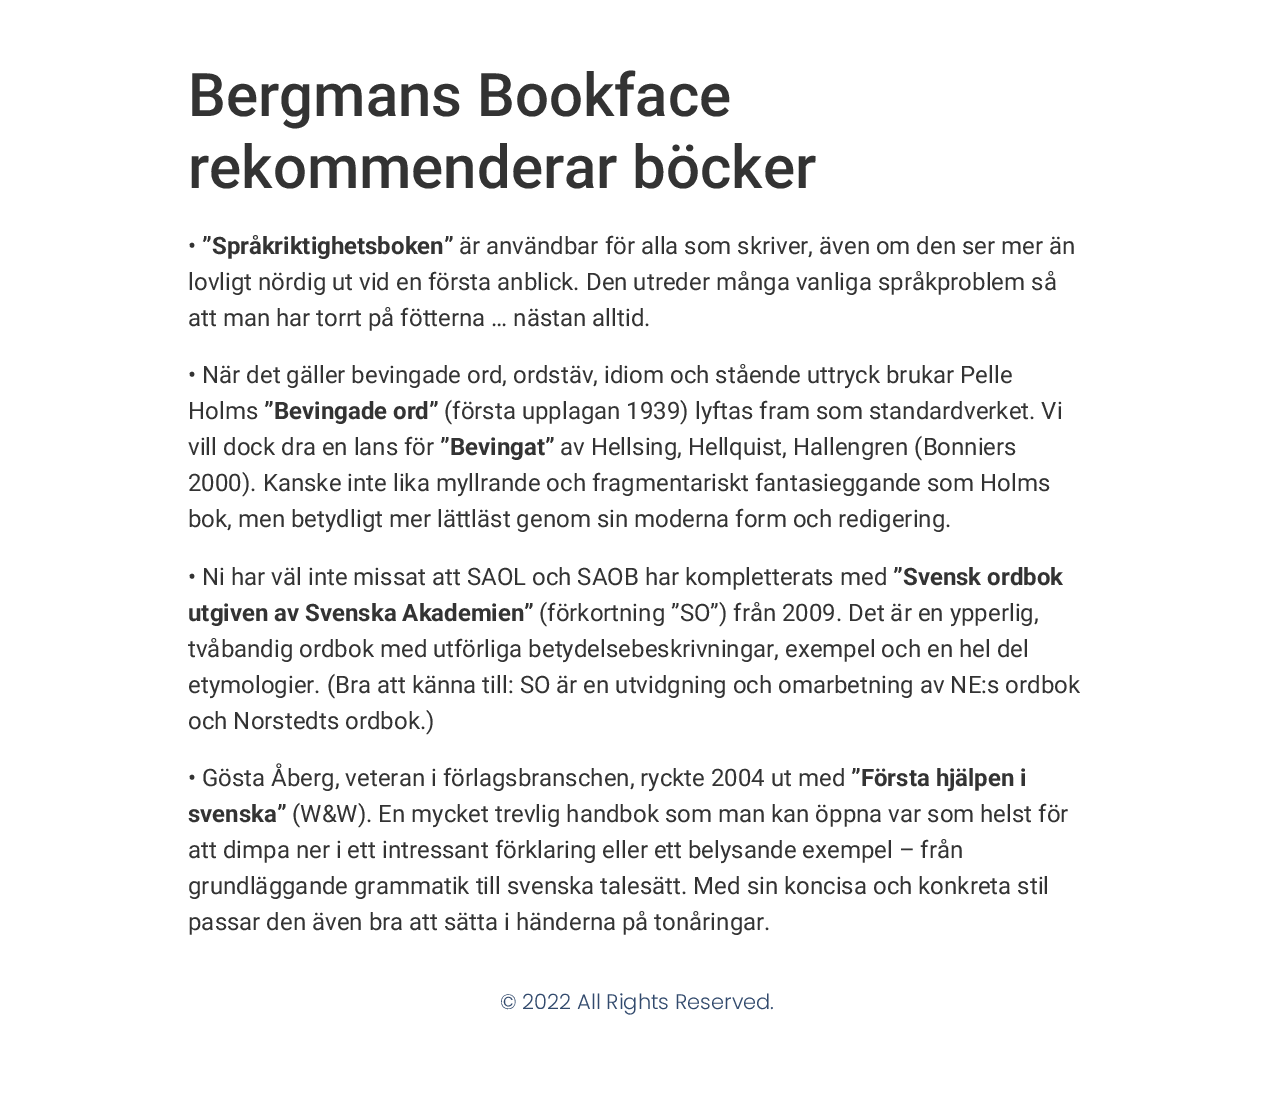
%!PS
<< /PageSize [1275 1095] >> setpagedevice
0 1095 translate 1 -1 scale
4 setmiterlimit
1 setgray
0 0 1275 1095 rectfill
/Roboto-Medium [60 0 0 -60 0 0] selectfont
0.2 setgray
188 116 moveto (Bergmans Bookface) show
188 188 moveto (rekommenderar böcker) show
/Roboto-Regular [24 0 0 -24 0 0] selectfont
188 254 moveto (•) show
/Roboto-Bold [24 0 0 -24 0 0] selectfont
202 254 moveto (”Språkriktighetsboken”) show
/Roboto-Regular [24 0 0 -24 0 0] selectfont
459 254 moveto (är användbar för alla som skriver, även om den ser mer än) show
188 290 moveto (lovligt nördig ut vid en första anblick. Den utreder många vanliga språkproblem så) show
188 326 moveto (att man har torrt på fötterna … nästan alltid.) show
188 383 moveto (• När det gäller bevingade ord, ordstäv, idiom och stående uttryck brukar Pelle) show
188 419 moveto (Holms) show
/Roboto-Bold [24 0 0 -24 0 0] selectfont
264 419 moveto (”Bevingade ord”) show
/Roboto-Regular [24 0 0 -24 0 0] selectfont
444 419 moveto (\(första upplagan 1939\) lyftas fram som standardverket. Vi) show
188 455 moveto (vill dock dra en lans för) show
/Roboto-Bold [24 0 0 -24 0 0] selectfont
440 455 moveto (”Bevingat”) show
/Roboto-Regular [24 0 0 -24 0 0] selectfont
560 455 moveto (av Hellsing, Hellquist, Hallengren \(Bonniers) show
188 491 moveto (2000\). Kanske inte lika myllrande och fragmentariskt fantasieggande som Holms) show
188 527 moveto (bok, men betydligt mer lättläst genom sin moderna form och redigering.) show
188 585 moveto (• Ni har väl inte missat att SAOL och SAOB har kompletterats med) show
/Roboto-Bold [24 0 0 -24 0 0] selectfont
893 585 moveto (”Svensk ordbok) show
188 621 moveto (utgiven av Svenska Akademien”) show
/Roboto-Regular [24 0 0 -24 0 0] selectfont
539 621 moveto (\(förkortning ”SO”\) från 2009. Det är en ypperlig,) show
188 657 moveto (tvåbandig ordbok med utförliga betydelsebeskrivningar, exempel och en hel del) show
188 693 moveto (etymologier. \(Bra att känna till: SO är en utvidgning och omarbetning av NE:s ordbok) show
188 729 moveto (och Norstedts ordbok.\)) show
188 786 moveto (• Gösta Åberg, veteran i förlagsbranschen, ryckte 2004 ut med) show
/Roboto-Bold [24 0 0 -24 0 0] selectfont
851 786 moveto (”Första hjälpen i) show
188 822 moveto (svenska”) show
/Roboto-Regular [24 0 0 -24 0 0] selectfont
292 822 moveto (\(W&W\). En mycket trevlig handbok som man kan öppna var som helst för) show
188 858 moveto (att dimpa ner i ett intressant förklaring eller ett belysande exempel – från) show
188 894 moveto (grundläggande grammatik till svenska talesätt. Med sin koncisa och konkreta stil) show
188 930 moveto (passar den även bra att sätta i händerna på tonåringar.) show
/Poppins-Light [21 0 0 -21 0 0] selectfont
0.196 0.29 0.427 setrgbcolor
500 1009 moveto (© 2022 All Rights Reserved.) show
showpage
